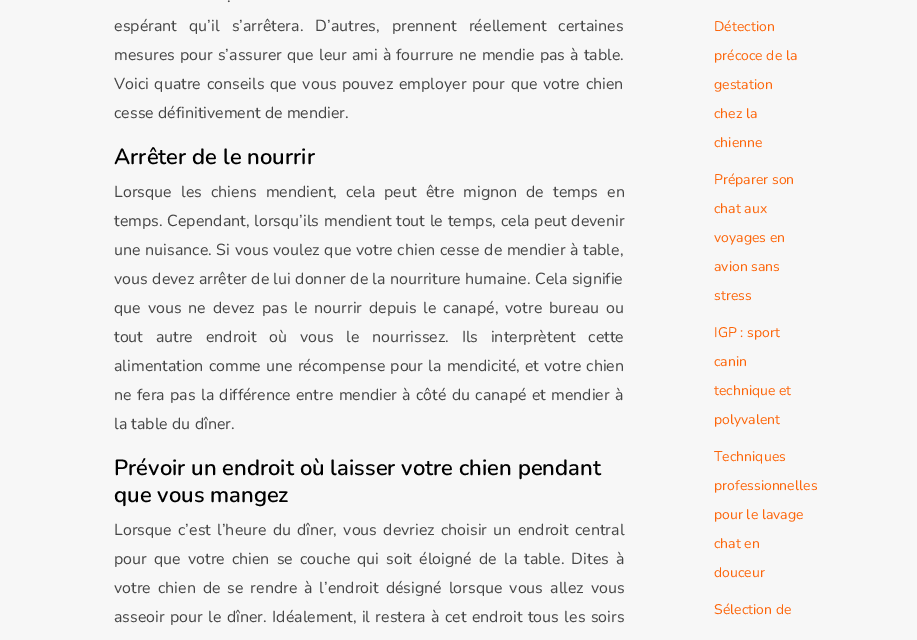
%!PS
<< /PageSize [917 640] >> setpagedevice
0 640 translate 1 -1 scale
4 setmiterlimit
0.969 setgray
0 0 917 640 rectfill
/Nunito-Regular [16 0 0 -16 0 0] selectfont
0.271 setgray
227 2 moveto 3 0 32 (.) widthshow
114 31 moveto 8 0 32 (espérant qu’il s’arrêtera. D’autres, prennent réellement certaines) widthshow
114 60 moveto 0.9 0 32 (mesures pour s’assurer que leur ami à fourrure ne mendie pas à table.) widthshow
114 89 moveto 1.5 0 32 (Voici quatre conseils que vous pouvez employer pour que votre chien) widthshow
114 118 moveto (cesse définitivement de mendier.) show
/Nunito-SemiBold [22 0 0 -22 0 0] selectfont
0 setgray
114 164 moveto (Arrêter de le nourrir) show
/Nunito-Regular [16 0 0 -16 0 0] selectfont
0.271 setgray
114 197 moveto 5 0 32 (Lorsque les chiens mendient, cela peut être mignon de temps en) widthshow
114 226 moveto 0.5 0 32 (temps. Cependant, lorsqu’ils mendient tout le temps, cela peut devenir) widthshow
114 255 moveto 0.5 0 32 (une nuisance. Si vous voulez que votre chien cesse de mendier à table,) widthshow
114 284 moveto 0.25 0 32 (vous devez arrêter de lui donner de la nourriture humaine. Cela signifie) widthshow
114 313 moveto 2.75 0 32 (que vous ne devez pas le nourrir depuis le canapé, votre bureau ou) widthshow
114 342 moveto 8.5 0 32 (tout autre endroit où vous le nourrissez. Ils interprètent cette) widthshow
114 371 moveto 1 0 32 (alimentation comme une récompense pour la mendicité, et votre chien) widthshow
114 400 moveto 1.1 0 32 (ne fera pas la différence entre mendier à côté du canapé et mendier à) widthshow
114 429 moveto (la table du dîner.) show
/Nunito-SemiBold [22 0 0 -22 0 0] selectfont
0 setgray
114 475 moveto (Prévoir un endroit où laisser votre chien pendant) show
114 502 moveto (que vous mangez) show
/Nunito-Regular [16 0 0 -16 0 0] selectfont
0.271 setgray
114 535 moveto 2.1 0 32 (Lorsque c’est l’heure du dîner, vous devriez choisir un endroit central) widthshow
114 564 moveto 2.9 0 32 (pour que votre chien se couche qui soit éloigné de la table. Dites à) widthshow
114 593 moveto 2.75 0 32 (votre chien de se rendre à l’endroit désigné lorsque vous allez vous) widthshow
114 622 moveto 1.2 0 32 (asseoir pour le dîner. Idéalement, il restera à cet endroit tous les soirs) widthshow
/Nunito-Regular [14 0 0 -14 0 0] selectfont
0.992 0.396 0.035 setrgbcolor
714 31 moveto (Détection) show
714 60 moveto (précoce de la) show
714 89 moveto (gestation) show
714 118 moveto (chez la) show
714 147 moveto (chienne) show
714 184 moveto (Préparer son) show
714 213 moveto (chat aux) show
714 242 moveto (voyages en) show
714 271 moveto (avion sans) show
714 300 moveto (stress) show
714 337 moveto (IGP : sport) show
714 366 moveto (canin) show
714 395 moveto (technique et) show
714 424 moveto (polyvalent) show
714 461 moveto (Techniques) show
714 490 moveto (professionnelles) show
714 519 moveto (pour le lavage) show
714 548 moveto (chat en) show
714 577 moveto (douceur) show
714 614 moveto (Sélection de) show
showpage
